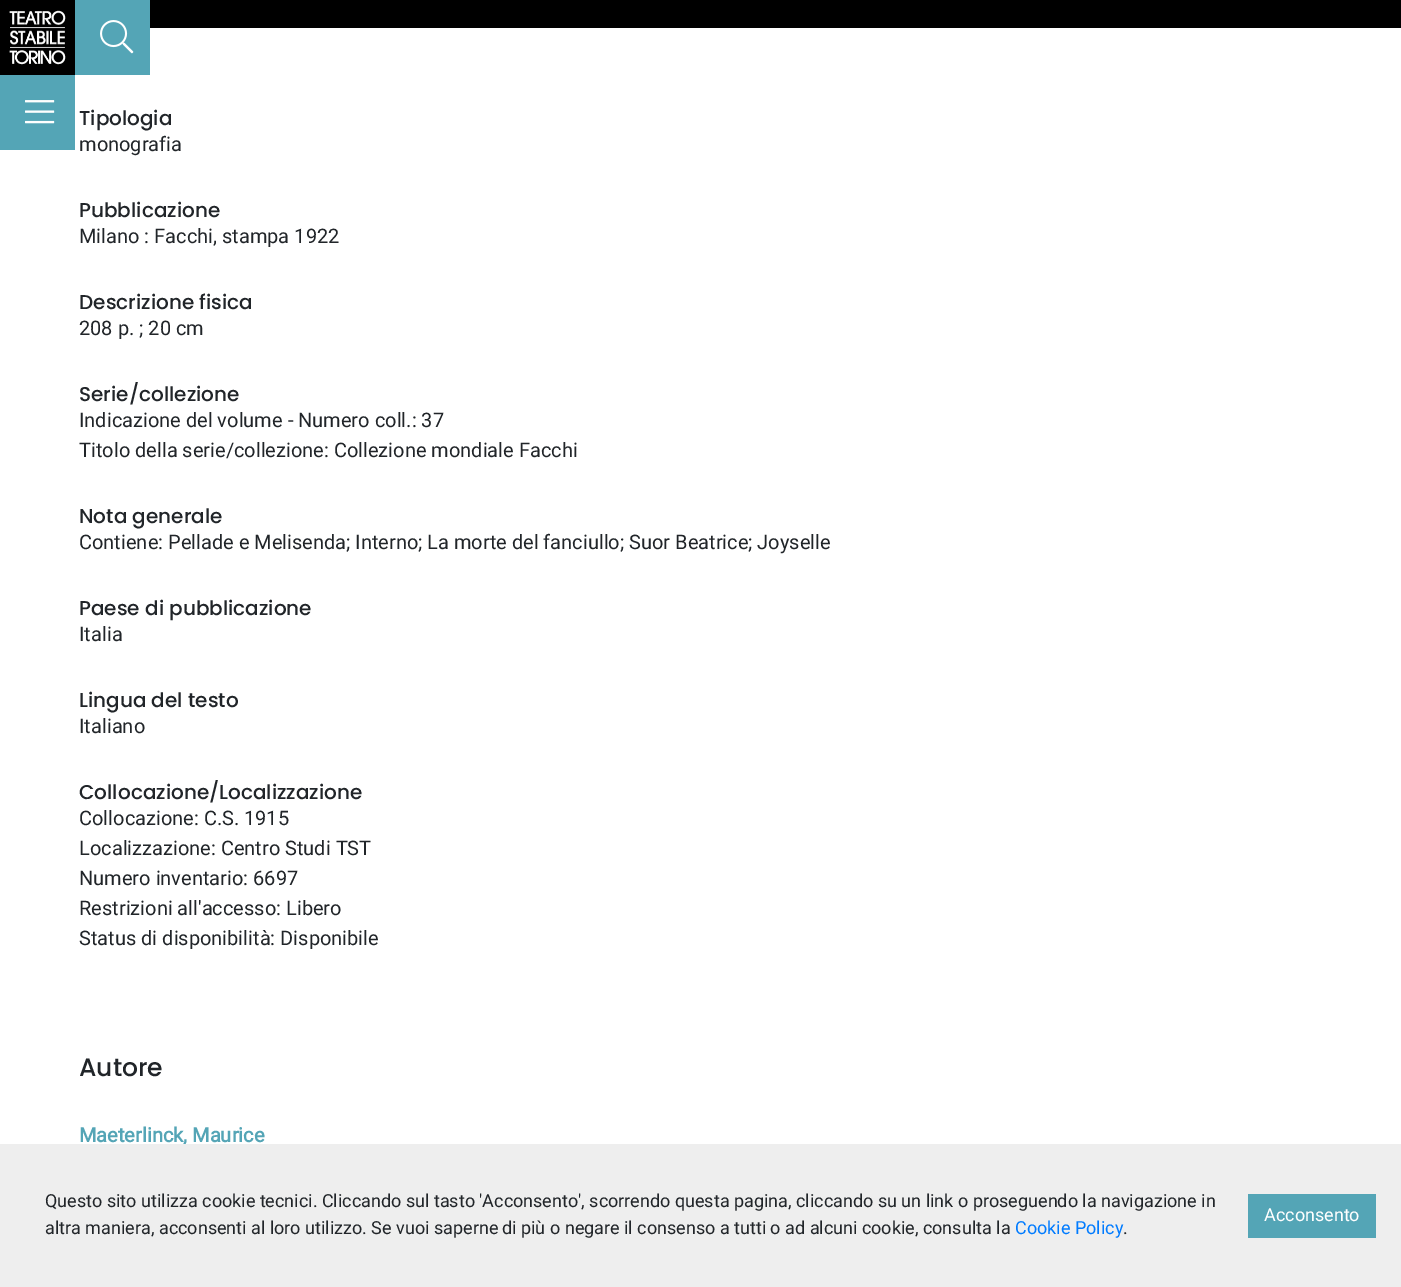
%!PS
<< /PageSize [1401 1287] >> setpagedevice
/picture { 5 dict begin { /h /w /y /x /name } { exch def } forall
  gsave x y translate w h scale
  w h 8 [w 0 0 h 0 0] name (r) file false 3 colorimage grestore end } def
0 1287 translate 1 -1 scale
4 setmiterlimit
1 setgray
0 0 1401 1287 rectfill
0 setgray
0 0 75 75 rectfill
(img1.rgb) 9 10 57 55 picture
0.329 0.647 0.714 setrgbcolor
75 0 75 75 rectfill
(img2.rgb) 100 20 34 34 picture
0 75 75 75 rectfill
(img3.rgb) 25 100 30 24 picture
0 setgray
150 0 1251 28 rectfill
/Poppins-Medium [20 0 0 -20 0 0] selectfont
0.129 0.145 0.161 setrgbcolor
79 125 moveto (Tipologia) show
/Roboto-Regular [20 0 0 -20 0 0] selectfont
79 151 moveto (monografia) show
/Poppins-Medium [20 0 0 -20 0 0] selectfont
79 217 moveto (Pubblicazione) show
/Roboto-Regular [20 0 0 -20 0 0] selectfont
79 243 moveto (Milano : Facchi, stampa 1922) show
/Poppins-Medium [20 0 0 -20 0 0] selectfont
79 309 moveto (Descrizione fisica) show
/Roboto-Regular [20 0 0 -20 0 0] selectfont
79 335 moveto (208 p. ; 20 cm) show
/Poppins-Medium [20 0 0 -20 0 0] selectfont
79 401 moveto (Serie/collezione) show
/Roboto-Regular [20 0 0 -20 0 0] selectfont
79 427 moveto (Indicazione del volume - Numero coll.: 37) show
79 457 moveto (Titolo della serie/collezione: Collezione mondiale Facchi) show
/Poppins-Medium [20 0 0 -20 0 0] selectfont
79 523 moveto (Nota generale) show
/Roboto-Regular [20 0 0 -20 0 0] selectfont
79 549 moveto (Contiene: Pellade e Melisenda; Interno; La morte del fanciullo; Suor Beatrice; Joyselle) show
/Poppins-Medium [20 0 0 -20 0 0] selectfont
79 615 moveto (Paese di pubblicazione) show
/Roboto-Regular [20 0 0 -20 0 0] selectfont
79 641 moveto (Italia) show
/Poppins-Medium [20 0 0 -20 0 0] selectfont
79 707 moveto (Lingua del testo) show
/Roboto-Regular [20 0 0 -20 0 0] selectfont
79 733 moveto (Italiano) show
/Poppins-Medium [20 0 0 -20 0 0] selectfont
79 799 moveto (Collocazione/Localizzazione) show
/Roboto-Regular [20 0 0 -20 0 0] selectfont
79 825 moveto (Collocazione: C.S. 1915) show
79 855 moveto (Localizzazione: Centro Studi TST) show
79 885 moveto (Numero inventario: 6697) show
79 915 moveto (Restrizioni all'accesso: Libero) show
79 945 moveto (Status di disponibilità: Disponibile) show
/Poppins-Medium [25 0 0 -25 0 0] selectfont
79 1076 moveto (Autore) show
/Roboto-Bold [20 0 0 -20 0 0] selectfont
0.329 0.647 0.714 setrgbcolor
79 1142 moveto (Maeterlinck, Maurice) show
0.933 setgray
0 1144 1401 143 rectfill
/Roboto-Regular [18 0 0 -18 0 0] selectfont
0.129 0.145 0.161 setrgbcolor
45 1207 moveto (Questo sito utilizza cookie tecnici. Cliccando sul tasto 'Acconsento', scorrendo questa pagina, cliccando su un link o proseguendo la navigazione in) show
45 1234 moveto (altra maniera, acconsenti al loro utilizzo. Se vuoi saperne) show
502 1234 moveto (di più o negare il consenso a tutti o ad alcuni cookie, consulta la) show
0 0.482 1 setrgbcolor
1015 1234 moveto (Cookie Policy) show
0.129 0.145 0.161 setrgbcolor
1123 1234 moveto (.) show
0.329 0.647 0.714 setrgbcolor
1248 1194 128 44 rectfill
1 setgray
1264 1221 moveto (Acconsento) show
showpage
